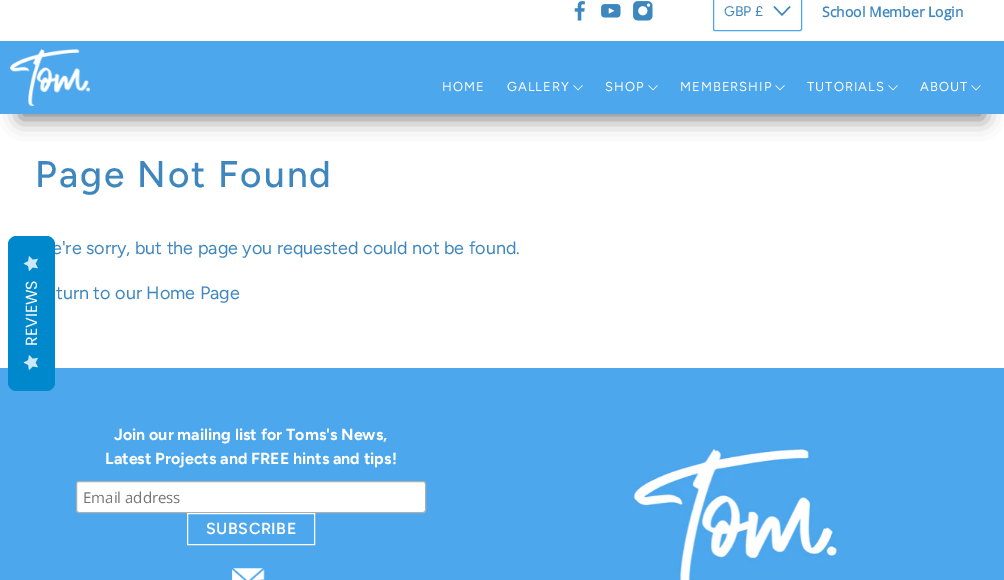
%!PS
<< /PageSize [1004 580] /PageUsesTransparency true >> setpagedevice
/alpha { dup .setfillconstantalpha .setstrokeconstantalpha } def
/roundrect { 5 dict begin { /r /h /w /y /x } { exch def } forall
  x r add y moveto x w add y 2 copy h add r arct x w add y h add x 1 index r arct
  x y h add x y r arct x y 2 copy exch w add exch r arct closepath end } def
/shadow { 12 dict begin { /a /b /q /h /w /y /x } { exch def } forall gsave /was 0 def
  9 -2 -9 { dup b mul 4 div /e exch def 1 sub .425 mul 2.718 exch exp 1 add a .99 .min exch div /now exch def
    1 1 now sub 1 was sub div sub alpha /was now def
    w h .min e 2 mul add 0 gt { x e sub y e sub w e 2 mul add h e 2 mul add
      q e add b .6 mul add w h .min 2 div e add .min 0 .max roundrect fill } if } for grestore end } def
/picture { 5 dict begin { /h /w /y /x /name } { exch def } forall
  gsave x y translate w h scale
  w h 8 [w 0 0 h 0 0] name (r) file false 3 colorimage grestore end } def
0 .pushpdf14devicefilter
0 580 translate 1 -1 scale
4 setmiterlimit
1 setgray
0 0 1004 580 rectfill
(img1.rgb) 574 1 11 20 picture
(img2.rgb) 601 4 20 14 picture
(img3.rgb) 633 1 20 20 picture
0.298 0.655 0.929 setrgbcolor
713.5 -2.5 88 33 1.5 roundrect stroke
/Figtree-Regular [14 0 0 -14 0 0] selectfont
0.243 0.525 0.745 setrgbcolor
724 16 moveto (GBP £) show
newpath 782 16 moveto 773.5 7 lineto 774.5 6 lineto 782 14 lineto 789.5 6 lineto 790.5 7 lineto closepath fill
/OpenSans-Bold [14 0 0 -14 0 0] selectfont
822 17 moveto (School Member Login) show
0 setgray
20 86 964 33 0 10 0.5 shadow
0.298 0.655 0.929 setrgbcolor
0 41 1004 73 rectfill
(img4.rgb) 10 49 80 57 picture
/Figtree-Regular [13 0 0 -13 0 0] selectfont
1 setgray
442 91 moveto 1 0 (HOME) ashow
507 91 moveto 1 0 (GALLERY) ashow
(img5.rgb) 573 85 10 6 picture
605 91 moveto 1 0 (SHOP) ashow
(img5.rgb) 648 85 10 6 picture
680 91 moveto 1 0 (MEMBERSHIP) ashow
(img5.rgb) 775 85 10 6 picture
807 91 moveto 1 0 (TUTORIALS) ashow
(img5.rgb) 888 85 10 6 picture
920 91 moveto 1 0 (ABOUT) ashow
(img5.rgb) 971 85 10 6 picture
/Figtree-Medium [37 0 0 -37 0 0] selectfont
0.243 0.525 0.745 setrgbcolor
35 187 moveto 2 0 (Page Not Found) ashow
/Figtree-Regular [18 0 0 -18 0 0] selectfont
52 254 moveto (e're sorry, but the page you requested could not be found.) show
56 299 moveto (turn to our Home Page) show
0.298 0.655 0.929 setrgbcolor
0 368 1004 212 rectfill
0 0.533 0.8 setrgbcolor
newpath 8 383 moveto 8 244 lineto 8 240 12 236 16 236 curveto 47 236 lineto 51 236 55 240 55 244 curveto 55 383 lineto 55 387 51 391 47 391 curveto 16 391 lineto 12 391 8 387 8 383 curveto closepath fill
(img6.rgb) 23 256 15 15 picture
/Poppins-Regular [16 0 0 -16 0 0] selectfont
1 setgray
gsave 37 346 translate -90 rotate 0 0 moveto (REVIEWS) show grestore
(img6.rgb) 23 355 15 15 picture
/Figtree-Bold [16 0 0 -16 0 0] selectfont
114 440 moveto (Join our mailing list for Toms's News,) show
105 464 moveto (Latest Projects and FREE hints and tips!) show
76.5 481.5 349 31 2.5 roundrect gsave fill grestore
0.671 0.69 0.698 setrgbcolor
stroke
/OpenSans-Regular [15 0 0 -15 0 0] selectfont
0.459 setgray
83 503 moveto (Email address) show
1 setgray
187.5 513.5 127 31 rectstroke
/Figtree-SemiBold [16 0 0 -16 0 0] selectfont
206 534 moveto 0.5 0 (SUBSCRIBE) ashow
(img7.rgb) 232 568 33 12 picture
(img8.rgb) 633 446 205 134 picture
.poppdf14devicefilter showpage
